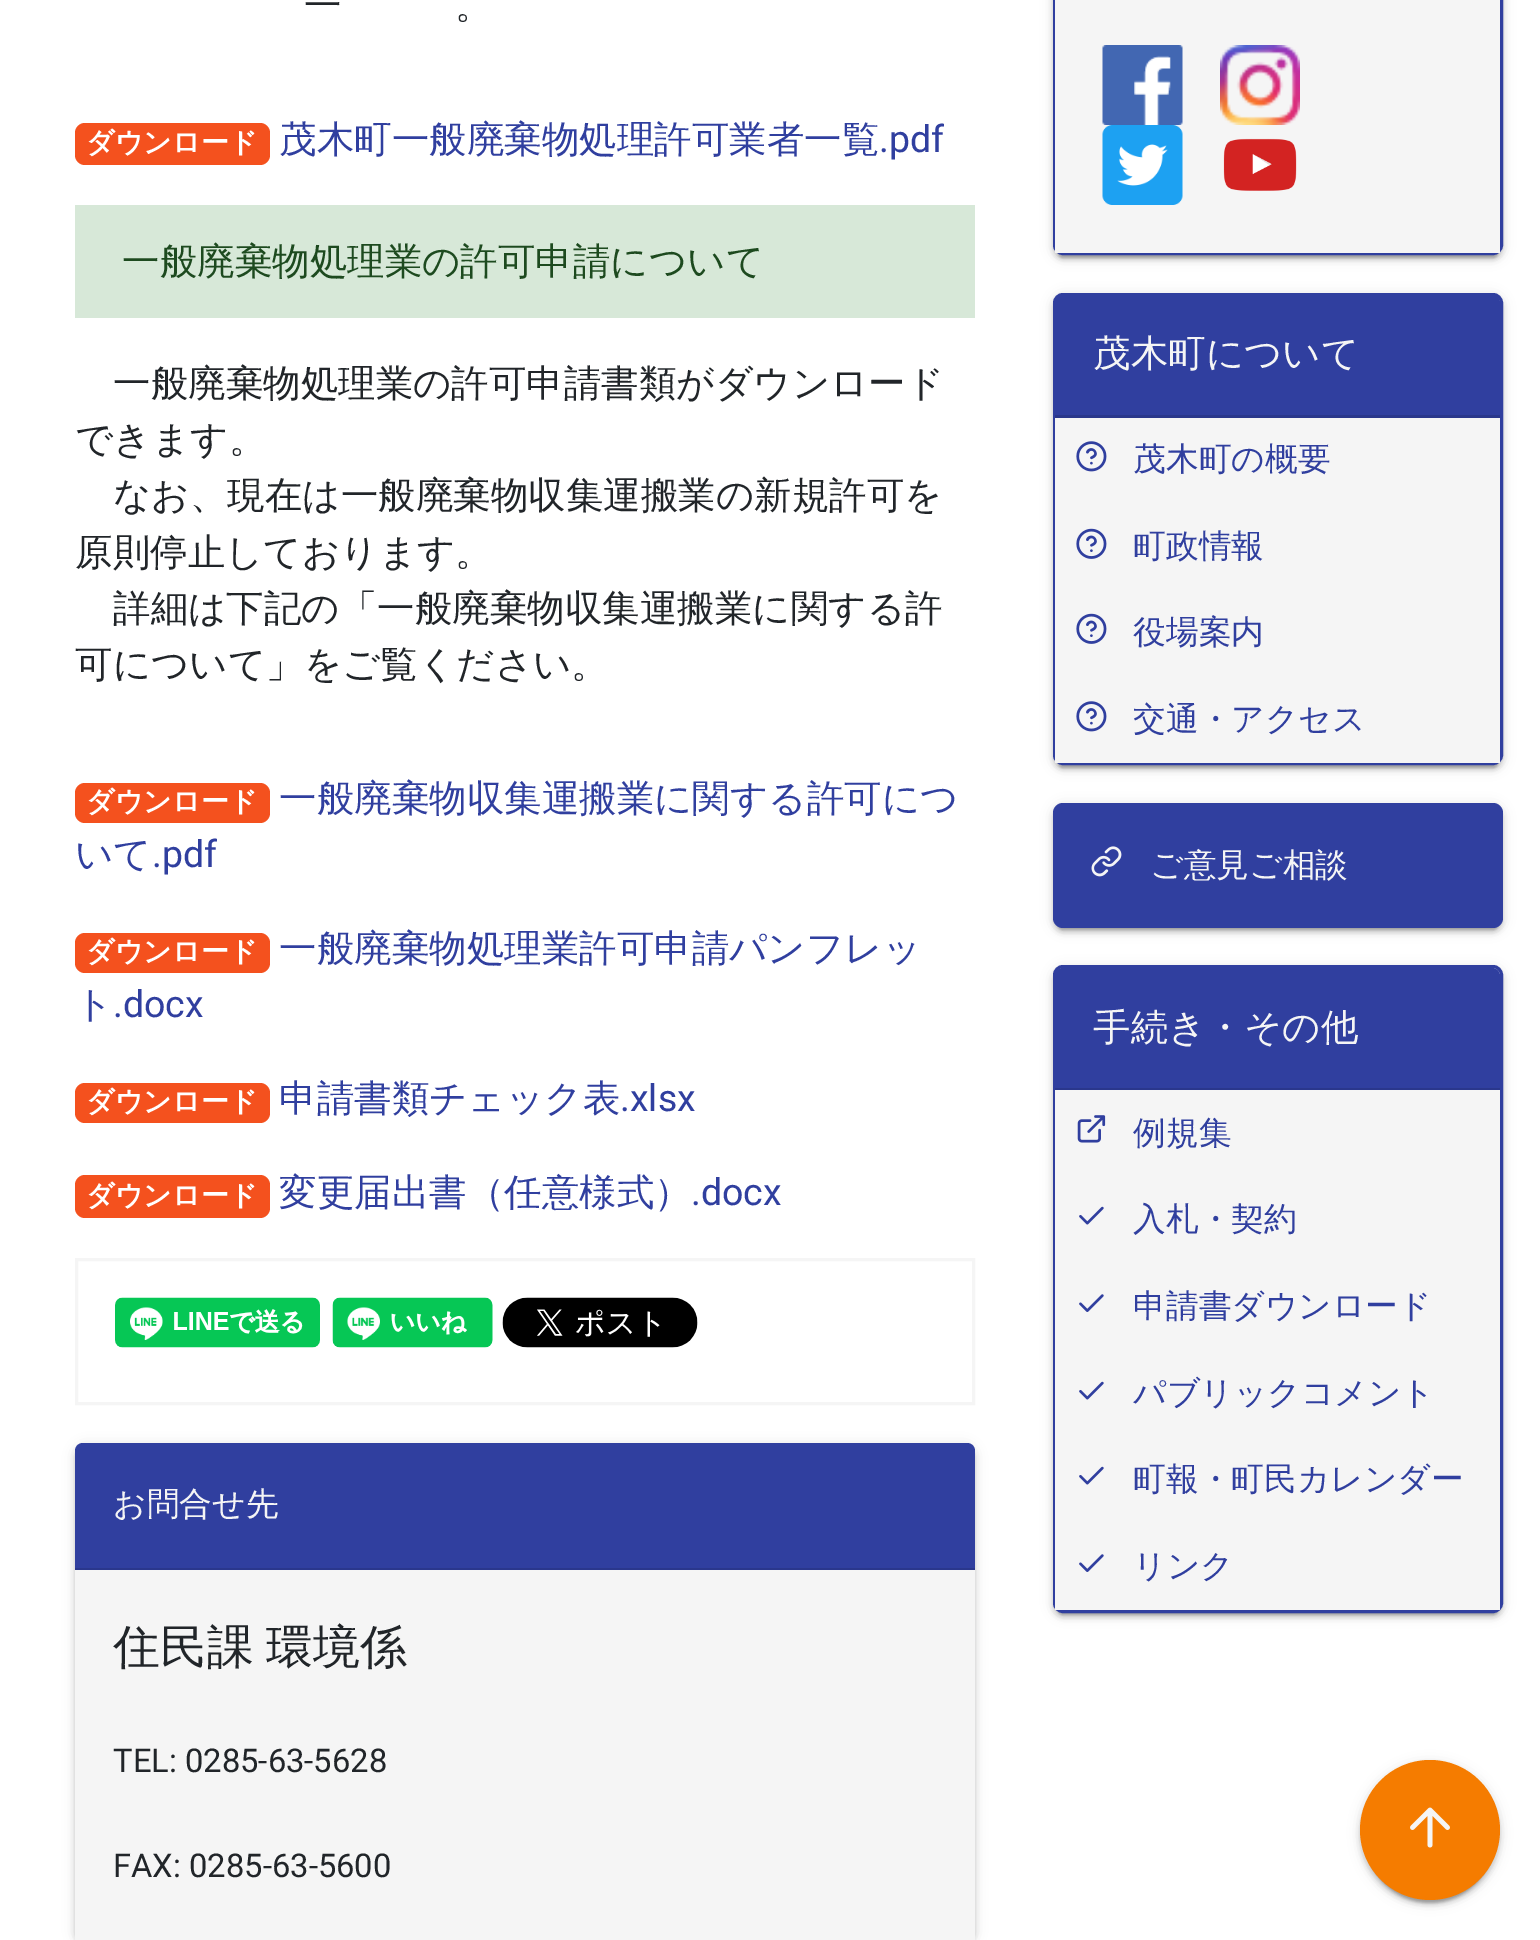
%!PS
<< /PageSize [1540 1940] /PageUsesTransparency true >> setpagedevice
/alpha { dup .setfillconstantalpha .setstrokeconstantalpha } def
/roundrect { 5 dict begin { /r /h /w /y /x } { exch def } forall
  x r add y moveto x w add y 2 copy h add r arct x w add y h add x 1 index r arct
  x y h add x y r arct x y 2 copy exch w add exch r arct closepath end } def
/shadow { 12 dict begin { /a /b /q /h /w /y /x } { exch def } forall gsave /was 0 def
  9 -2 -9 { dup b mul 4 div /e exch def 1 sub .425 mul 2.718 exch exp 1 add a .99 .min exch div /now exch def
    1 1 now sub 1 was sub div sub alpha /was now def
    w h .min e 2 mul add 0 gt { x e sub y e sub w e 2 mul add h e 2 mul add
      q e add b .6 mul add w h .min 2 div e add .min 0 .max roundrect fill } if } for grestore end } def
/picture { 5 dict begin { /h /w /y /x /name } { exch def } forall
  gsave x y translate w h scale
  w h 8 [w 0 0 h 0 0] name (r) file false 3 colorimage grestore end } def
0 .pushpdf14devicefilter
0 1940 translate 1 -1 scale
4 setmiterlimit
1 setgray
0 0 1540 1940 rectfill
/WenQuanYiZenHei-Medium [37.5 0 0 -37.5 0 0] selectfont
0.129 0.145 0.161 setrgbcolor
304 18 moveto (一) show
455 18 moveto (。) show
0.957 0.318 0.118 setrgbcolor
75 123 195 42 10 roundrect fill
/WenQuanYiZenHei-Bold [28 0 0 -28 0 0] selectfont
1 setgray
86 152 moveto (ダウンロード) show
/WenQuanYiZenHei-Medium [37.5 0 0 -37.5 0 0] selectfont
0.188 0.247 0.624 setrgbcolor
279 152 moveto (茂木町一般廃棄物処理許可業者一覧) show
/Roboto-Regular [37.5 0 0 -37.5 0 0] selectfont
879 152 moveto (.pdf) show
0.843 0.91 0.847 setrgbcolor
75 205 900 113 rectfill
/WenQuanYiZenHei-Medium [37.5 0 0 -37.5 0 0] selectfont
0.114 0.29 0.122 setrgbcolor
122 274 moveto (一般廃棄物処理業の許可申請について) show
0.129 0.145 0.161 setrgbcolor
113 396 moveto (一般廃棄物処理業の許可申請書類がダウンロード) show
75 452 moveto (できます。) show
113 508 moveto (なお、現在は一般廃棄物収集運搬業の新規許可を) show
75 565 moveto (原則停止しております。) show
113 621 moveto (詳細は下記の「一般廃棄物収集運搬業に関する許) show
75 677 moveto (可について」をご覧ください。) show
0.957 0.318 0.118 setrgbcolor
75 783 195 40 10 roundrect fill
/WenQuanYiZenHei-Bold [28 0 0 -28 0 0] selectfont
1 setgray
86 811 moveto (ダウンロード) show
/WenQuanYiZenHei-Medium [37.5 0 0 -37.5 0 0] selectfont
0.188 0.247 0.624 setrgbcolor
279 811 moveto (一般廃棄物収集運搬業に関する許可につ) show
75 867 moveto (いて) show
/Roboto-Regular [37.5 0 0 -37.5 0 0] selectfont
152 867 moveto (.pdf) show
0.957 0.318 0.118 setrgbcolor
75 933 195 40 10 roundrect fill
/WenQuanYiZenHei-Bold [28 0 0 -28 0 0] selectfont
1 setgray
86 961 moveto (ダウンロード) show
/WenQuanYiZenHei-Medium [37.5 0 0 -37.5 0 0] selectfont
0.188 0.247 0.624 setrgbcolor
279 961 moveto (一般廃棄物処理業許可申請パンフレッ) show
75 1017 moveto (ト) show
/Roboto-Regular [37.5 0 0 -37.5 0 0] selectfont
113 1017 moveto (.docx) show
0.957 0.318 0.118 setrgbcolor
75 1083 195 40 10 roundrect fill
/WenQuanYiZenHei-Bold [28 0 0 -28 0 0] selectfont
1 setgray
86 1111 moveto (ダウンロード) show
/WenQuanYiZenHei-Medium [37.5 0 0 -37.5 0 0] selectfont
0.188 0.247 0.624 setrgbcolor
279 1111 moveto (申請書類チェック表) show
/Roboto-Regular [37.5 0 0 -37.5 0 0] selectfont
620 1111 moveto (.xlsx) show
0.957 0.318 0.118 setrgbcolor
75 1175 195 43 10 roundrect fill
/WenQuanYiZenHei-Bold [28 0 0 -28 0 0] selectfont
1 setgray
86 1205 moveto (ダウンロード) show
/WenQuanYiZenHei-Medium [37.5 0 0 -37.5 0 0] selectfont
0.188 0.247 0.624 setrgbcolor
279 1205 moveto (変更届出書（任意様式）) show
/Roboto-Regular [37.5 0 0 -37.5 0 0] selectfont
691 1205 moveto (.docx) show
0.961 setgray
3 setlinewidth
76.5 1259.5 897 144 rectstroke
(img1.rgb) 115 1297 205 51 picture
(img2.rgb) 332 1297 161 51 picture
(img3.rgb) 502 1297 196 51 picture
0 setgray
75 1445 900 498 10 6 0.12 shadow
75 1448 900 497 10 2.5 0.14 shadow
0.188 0.247 0.624 setrgbcolor
newpath 83 1443 moveto 967 1443 lineto 971.5 1443 975 1446.5 975 1451 curveto 975 1570 lineto 75 1570 lineto 75 1451 lineto 75 1446.5 78.5 1443 83 1443 curveto closepath fill
0.165 0.216 0.549 setrgbcolor
75 1568 900 2 rectfill
/WenQuanYiZenHei-Medium [32.75 0 0 -32.75 0 0] selectfont
0.961 setgray
113 1515 moveto (お問合せ先) show
75 1570 900 370 rectfill
/WenQuanYiZenHei-Medium [47 0 0 -47 0 0] selectfont
0.129 0.145 0.161 setrgbcolor
113 1663 moveto -2 0 32 (住民課 環境係) widthshow
/Roboto-Regular [32.75 0 0 -32.75 0 0] selectfont
113 1772 moveto (TEL: 0285-63-5628) show
113 1877 moveto (FAX: 0285-63-5600) show
0 setgray
1053 -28 450 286 10 6 0.12 shadow
1058 -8 440 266 5 1 0.2 shadow
1053 -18 450 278 10 2.5 0.14 shadow
0.188 0.247 0.624 setrgbcolor
1054.5 -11.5 447 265 8.5 roundrect stroke
0.961 setgray
1055 0 445 253 rectfill
(img4.rgb) 1102 45 81 80 picture
(img5.rgb) 1220 45 80 80 picture
(img6.rgb) 1102 125 81 80 picture
(img7.rgb) 1223 138 74 53 picture
0 setgray
1053 295 450 473 10 6 0.12 shadow
1058 305 440 463 5 1 0.2 shadow
1053 298 450 472 10 2.5 0.14 shadow
0.188 0.247 0.624 setrgbcolor
1054.5 294.5 447 469 8.5 roundrect stroke
newpath 1063 295 moveto 1492 295 lineto 1496.5 295 1500 298.5 1500 303 curveto 1500 418 lineto 1055 418 lineto 1055 303 lineto 1055 298.5 1058.5 295 1063 295 curveto closepath fill
0.165 0.216 0.545 setrgbcolor
1055 415 445 3 rectfill
/WenQuanYiZenHei-Medium [37.5 0 0 -37.5 0 0] selectfont
0.961 setgray
1093 366 moveto (茂木町について) show
1055 418 445 345 rectfill
(img8.rgb) 1076 441 31 31 picture
/WenQuanYiZenHei-Medium [32.75 0 0 -32.75 0 0] selectfont
0.188 0.247 0.624 setrgbcolor
1133 470 moveto (茂木町の概要) show
(img9.rgb) 1076 528 31 31 picture
1133 557 moveto (町政情報) show
(img9.rgb) 1076 613 31 31 picture
1133 643 moveto (役場案内) show
(img8.rgb) 1076 701 31 31 picture
1133 730 moveto (交通・アクセス) show
0 setgray
1053 805 450 125 10 6 0.12 shadow
1058 815 440 115 5 1 0.2 shadow
1053 808 450 125 10 2.5 0.14 shadow
0.188 0.247 0.624 setrgbcolor
1053 803 450 125 10 roundrect fill
(img10.rgb) 1091 846 31 31 picture
0.961 setgray
1150 876 moveto (ご意見ご相談) show
0 setgray
1053 968 450 647 10 6 0.12 shadow
1058 978 440 637 5 1 0.2 shadow
1053 970 450 648 10 2.5 0.14 shadow
1 setgray
1054.5 966.5 447 645 8.5 roundrect gsave fill grestore
0.188 0.247 0.624 setrgbcolor
stroke
newpath 1063 968 moveto 1492 968 lineto 1496.5 968 1500 971.5 1500 976 curveto 1500 1090 lineto 1055 1090 lineto 1055 976 lineto 1055 971.5 1058.5 968 1063 968 curveto closepath fill
0.12 alpha
0 setgray
1055 1088 445 2 rectfill
/WenQuanYiZenHei-Medium [37.5 0 0 -37.5 0 0] selectfont
1 alpha
0.961 setgray
1093 1040 moveto (手続き・その他) show
1055 1090 445 520 rectfill
(img11.rgb) 1077 1115 29 28 picture
/WenQuanYiZenHei-Medium [32.75 0 0 -32.75 0 0] selectfont
0.188 0.247 0.624 setrgbcolor
1133 1144 moveto (例規集) show
(img12.rgb) 1079 1206 25 19 picture
1133 1230 moveto (入札・契約) show
(img13.rgb) 1079 1294 25 18 picture
1133 1317 moveto (申請書ダウンロード) show
(img12.rgb) 1079 1381 25 19 picture
1133 1404 moveto (パブリックコメント) show
(img12.rgb) 1079 1466 25 19 picture
1133 1490 moveto (町報・町民カレンダー) show
(img13.rgb) 1079 1554 25 18 picture
1133 1577 moveto (リンク) show
0 setgray
1360 1763 140 140 70 6 0.12 shadow
1365 1773 130 130 65 1 0.2 shadow
1360 1765 140 140 70 2.5 0.14 shadow
0.961 0.486 0 setrgbcolor
newpath 1430 1830 70 0 360 arc closepath fill
(img14.rgb) 1410 1807 40 41 picture
.poppdf14devicefilter showpage
